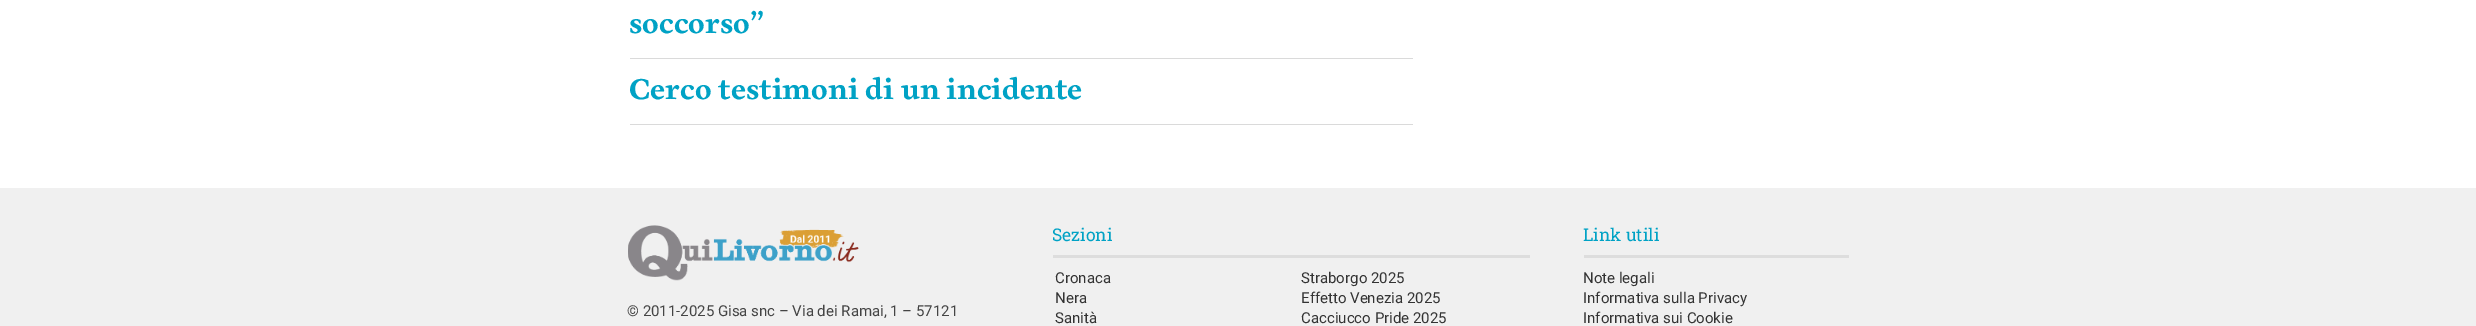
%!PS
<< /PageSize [2476 326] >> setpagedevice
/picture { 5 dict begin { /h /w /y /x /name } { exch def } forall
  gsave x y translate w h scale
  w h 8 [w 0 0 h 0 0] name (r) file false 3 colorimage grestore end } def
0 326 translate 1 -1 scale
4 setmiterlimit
1 setgray
0 0 2476 326 rectfill
0.855 setgray
630 58 783 1 rectfill
/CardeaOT-Bold [30 0 0 -30 0 0] selectfont
0 0.635 0.773 setrgbcolor
629 33 moveto (soccorso”) show
0.855 setgray
630 124 783 1 rectfill
0 0.635 0.773 setrgbcolor
629 99 moveto (Cerco testimoni di un incidente) show
0.941 setgray
0 188 2476 138 rectfill
(img1.rgb) 628 225 231 56 picture
/Roboto-Regular [15 0 0 -15 0 0] selectfont
0.267 setgray
627 316 moveto (© 2011-2025 Gisa snc – Via dei Ramai, 1 – 57121) show
0.867 setgray
1053 255 477 3 rectfill
/RobotoSlab-Regular [17.5 0 0 -17.5 0 0] selectfont
0 0.635 0.773 setrgbcolor
1052 241 moveto (Sezioni) show
/Roboto-Regular [15 0 0 -15 0 0] selectfont
0.2 setgray
1055 283 moveto (Cronaca) show
1055 303 moveto (Nera) show
1055 323 moveto (Sanità) show
1301 283 moveto (Straborgo 2025) show
1301 303 moveto (Effetto Venezia 2025) show
1301 323 moveto (Cacciucco Pride 2025) show
0.867 setgray
1584 255 265 3 rectfill
/RobotoSlab-Regular [17.5 0 0 -17.5 0 0] selectfont
0 0.635 0.773 setrgbcolor
1583 241 moveto (Link utili) show
/Roboto-Regular [15 0 0 -15 0 0] selectfont
0.2 setgray
1583 283 moveto (Note legali) show
1583 303 moveto (Informativa sulla Privacy) show
1583 323 moveto (Informativa sui Cookie) show
showpage
